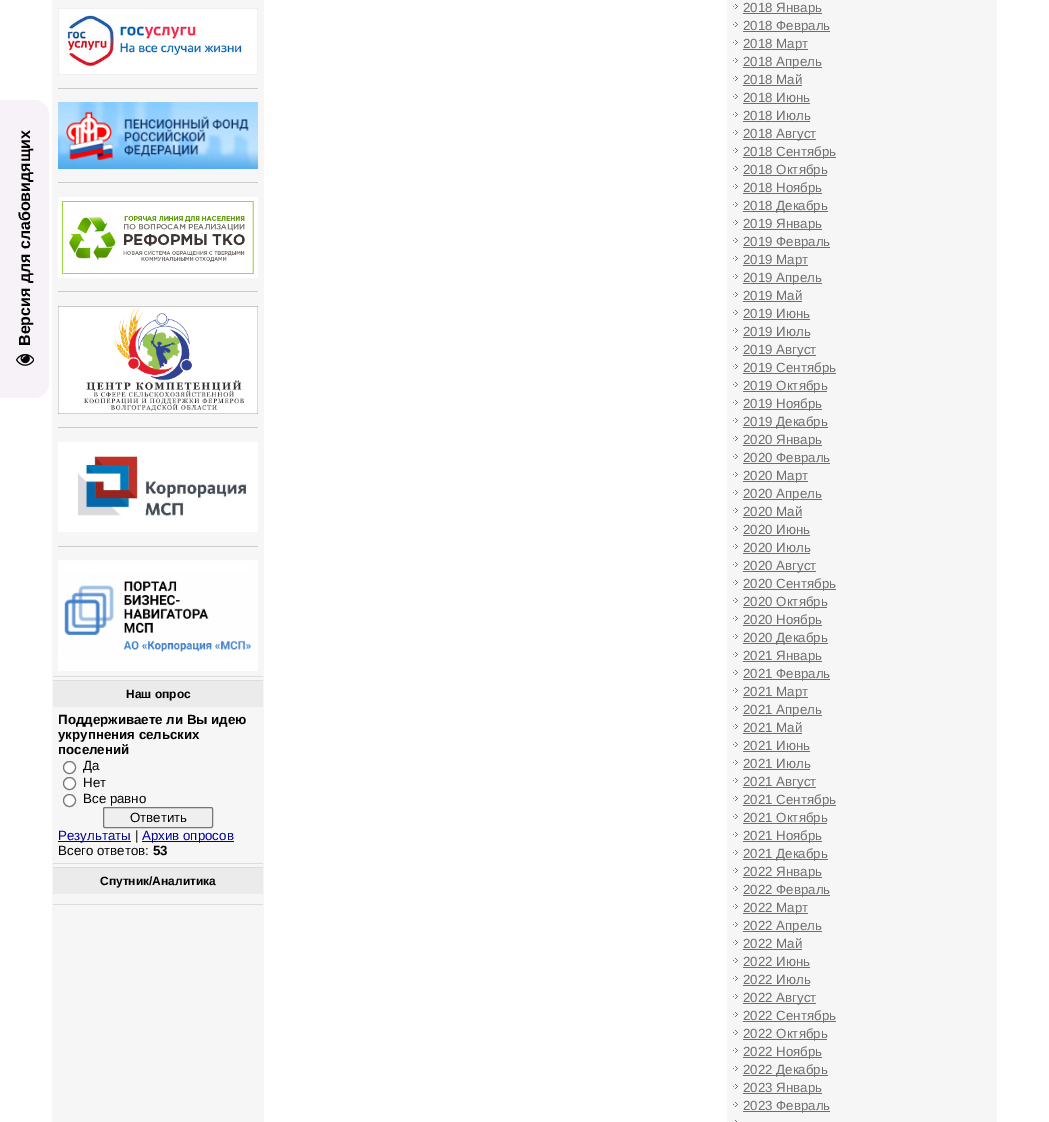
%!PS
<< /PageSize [1049 1122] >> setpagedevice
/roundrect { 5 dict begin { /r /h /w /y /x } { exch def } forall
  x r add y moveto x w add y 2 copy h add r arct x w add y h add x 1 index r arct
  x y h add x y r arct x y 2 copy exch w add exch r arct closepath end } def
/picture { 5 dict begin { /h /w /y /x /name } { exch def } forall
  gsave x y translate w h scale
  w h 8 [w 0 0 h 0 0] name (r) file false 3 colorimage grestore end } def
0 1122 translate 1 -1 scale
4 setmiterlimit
1 setgray
0 0 1049 1122 rectfill
0.969 0.949 0.969 setrgbcolor
newpath 0 100 moveto 34 100 lineto 42.5 100 49 106.5 49 115 curveto 49 383 lineto 49 391.5 42.5 398 34 398 curveto 0 398 lineto closepath fill
/LiberationSans-Bold [16 0 0 -16 0 0] selectfont
0 setgray
gsave 30 346 translate -90 rotate 0 0 moveto (Версия для слабовидящих) show grestore
(img1.rgb) 16 353 18 13 picture
0.965 setgray
52 0 212 1122 rectfill
0.867 setgray
53 676 210 1 rectfill
(img2.rgb) 58 8 200 67 picture
0.8 setgray
58 88 200 1 rectfill
(img3.rgb) 58 102 200 67 picture
58 182 200 1 rectfill
(img4.rgb) 58 197 200 81 picture
58 291 200 1 rectfill
(img5.rgb) 58 306 200 108 picture
58 427 200 1 rectfill
(img6.rgb) 58 442 200 90 picture
58 546 200 1 rectfill
(img7.rgb) 58 560 200 111 picture
0.867 setgray
53 680 210 1 rectfill
53 863 210 1 rectfill
0.922 setgray
53 681 210 26 rectfill
/LiberationSans-Bold [12 0 0 -12 0 0] selectfont
0 setgray
126 698 moveto (Наш опрос) show
/LiberationSans-Bold [13.3 0 0 -13.3 0 0] selectfont
58 724 moveto (Поддерживаете ли Вы идею) show
58 739 moveto (укрупнения сельских) show
58 754 moveto (поселений) show
1 setgray
newpath 69.5 767.5 6 0 360 arc closepath gsave fill grestore
0.463 setgray
stroke
/LiberationSans-Regular [13.3 0 0 -13.3 0 0] selectfont
0 setgray
83 770 moveto (Да) show
1 setgray
newpath 69.5 783.5 6 0 360 arc closepath gsave fill grestore
0.463 setgray
stroke
0 setgray
83 787 moveto (Нет) show
1 setgray
newpath 69.5 800.5 6 0 360 arc closepath gsave fill grestore
0.463 setgray
stroke
0 setgray
83 803 moveto (Все равно) show
0.937 setgray
103.5 807.5 109 20 1.5 roundrect gsave fill grestore
0.463 setgray
stroke
0 setgray
130 822 moveto (Ответить) show
0 0 0.588 setrgbcolor
58 841 73 1 rectfill
58 840 moveto (Результаты) show
0 setgray
135 840 moveto (|) show
0 0 0.588 setrgbcolor
142 841 92 1 rectfill
142 840 moveto (Архив опросов) show
0 setgray
58 855 moveto (Всего ответов:) show
/LiberationSans-Bold [13.3 0 0 -13.3 0 0] selectfont
153 855 moveto (53) show
0.867 setgray
53 867 210 1 rectfill
53 904 210 1 rectfill
0.922 setgray
53 868 210 26 rectfill
/LiberationSans-Bold [12 0 0 -12 0 0] selectfont
0 setgray
100 885 moveto (Спутник/Аналитика) show
0.965 setgray
727 0 270 1122 rectfill
(img8.rgb) 733 4 5 5 picture
0.431 setgray
743 13 79 1 rectfill
/LiberationSans-Regular [13.3 0 0 -13.3 0 0] selectfont
743 12 moveto (2018 Январь) show
(img8.rgb) 733 22 5 5 picture
743 31 87 1 rectfill
743 30 moveto (2018 Февраль) show
(img8.rgb) 733 40 5 5 picture
743 49 65 1 rectfill
743 48 moveto (2018 Март) show
(img8.rgb) 733 58 5 5 picture
743 67 79 1 rectfill
743 66 moveto (2018 Апрель) show
(img8.rgb) 733 76 5 5 picture
743 84 moveto (2018 Май) show
743 85 59 1 rectfill
(img8.rgb) 733 94 5 5 picture
743 102 moveto (2018 Июнь) show
743 103 67 1 rectfill
(img8.rgb) 733 112 5 5 picture
743 120 moveto (2018 Июль) show
743 121 67 1 rectfill
(img8.rgb) 733 130 5 5 picture
743 139 73 1 rectfill
743 138 moveto (2018 Август) show
(img8.rgb) 733 148 5 5 picture
743 157 93 1 rectfill
743 156 moveto (2018 Сентябрь) show
(img8.rgb) 733 166 5 5 picture
743 175 84 1 rectfill
743 174 moveto (2018 Октябрь) show
(img8.rgb) 733 184 5 5 picture
743 193 79 1 rectfill
743 192 moveto (2018 Ноябрь) show
(img8.rgb) 733 202 5 5 picture
743 211 85 1 rectfill
743 210 moveto (2018 Декабрь) show
(img8.rgb) 733 220 5 5 picture
743 229 79 1 rectfill
743 228 moveto (2019 Январь) show
(img8.rgb) 733 238 5 5 picture
743 247 87 1 rectfill
743 246 moveto (2019 Февраль) show
(img8.rgb) 733 256 5 5 picture
743 265 65 1 rectfill
743 264 moveto (2019 Март) show
(img8.rgb) 733 274 5 5 picture
743 283 79 1 rectfill
743 282 moveto (2019 Апрель) show
(img8.rgb) 733 292 5 5 picture
743 300 moveto (2019 Май) show
743 301 59 1 rectfill
(img8.rgb) 733 310 5 5 picture
743 318 moveto (2019 Июнь) show
743 319 67 1 rectfill
(img8.rgb) 733 328 5 5 picture
743 336 moveto (2019 Июль) show
743 337 67 1 rectfill
(img8.rgb) 733 346 5 5 picture
743 355 73 1 rectfill
743 354 moveto (2019 Август) show
(img8.rgb) 733 364 5 5 picture
743 373 93 1 rectfill
743 372 moveto (2019 Сентябрь) show
(img8.rgb) 733 382 5 5 picture
743 391 84 1 rectfill
743 390 moveto (2019 Октябрь) show
(img8.rgb) 733 400 5 5 picture
743 409 79 1 rectfill
743 408 moveto (2019 Ноябрь) show
(img8.rgb) 733 418 5 5 picture
743 427 85 1 rectfill
743 426 moveto (2019 Декабрь) show
(img8.rgb) 733 436 5 5 picture
743 445 79 1 rectfill
743 444 moveto (2020 Январь) show
(img8.rgb) 733 454 5 5 picture
743 463 87 1 rectfill
743 462 moveto (2020 Февраль) show
(img8.rgb) 733 472 5 5 picture
743 481 65 1 rectfill
743 480 moveto (2020 Март) show
(img8.rgb) 733 490 5 5 picture
743 499 79 1 rectfill
743 498 moveto (2020 Апрель) show
(img8.rgb) 733 508 5 5 picture
743 516 moveto (2020 Май) show
743 517 59 1 rectfill
(img8.rgb) 733 526 5 5 picture
743 534 moveto (2020 Июнь) show
743 535 67 1 rectfill
(img8.rgb) 733 544 5 5 picture
743 552 moveto (2020 Июль) show
743 553 67 1 rectfill
(img8.rgb) 733 562 5 5 picture
743 571 73 1 rectfill
743 570 moveto (2020 Август) show
(img8.rgb) 733 580 5 5 picture
743 589 93 1 rectfill
743 588 moveto (2020 Сентябрь) show
(img8.rgb) 733 598 5 5 picture
743 607 84 1 rectfill
743 606 moveto (2020 Октябрь) show
(img8.rgb) 733 616 5 5 picture
743 625 79 1 rectfill
743 624 moveto (2020 Ноябрь) show
(img8.rgb) 733 634 5 5 picture
743 643 85 1 rectfill
743 642 moveto (2020 Декабрь) show
(img8.rgb) 733 652 5 5 picture
743 661 79 1 rectfill
743 660 moveto (2021 Январь) show
(img8.rgb) 733 670 5 5 picture
743 679 87 1 rectfill
743 678 moveto (2021 Февраль) show
(img8.rgb) 733 688 5 5 picture
743 697 65 1 rectfill
743 696 moveto (2021 Март) show
(img8.rgb) 733 706 5 5 picture
743 715 79 1 rectfill
743 714 moveto (2021 Апрель) show
(img8.rgb) 733 724 5 5 picture
743 732 moveto (2021 Май) show
743 733 59 1 rectfill
(img8.rgb) 733 742 5 5 picture
743 750 moveto (2021 Июнь) show
743 751 67 1 rectfill
(img8.rgb) 733 760 5 5 picture
743 768 moveto (2021 Июль) show
743 769 67 1 rectfill
(img8.rgb) 733 778 5 5 picture
743 787 73 1 rectfill
743 786 moveto (2021 Август) show
(img8.rgb) 733 796 5 5 picture
743 805 93 1 rectfill
743 804 moveto (2021 Сентябрь) show
(img8.rgb) 733 814 5 5 picture
743 823 84 1 rectfill
743 822 moveto (2021 Октябрь) show
(img8.rgb) 733 832 5 5 picture
743 841 79 1 rectfill
743 840 moveto (2021 Ноябрь) show
(img8.rgb) 733 850 5 5 picture
743 859 85 1 rectfill
743 858 moveto (2021 Декабрь) show
(img8.rgb) 733 868 5 5 picture
743 877 79 1 rectfill
743 876 moveto (2022 Январь) show
(img8.rgb) 733 886 5 5 picture
743 895 87 1 rectfill
743 894 moveto (2022 Февраль) show
(img8.rgb) 733 904 5 5 picture
743 913 65 1 rectfill
743 912 moveto (2022 Март) show
(img8.rgb) 733 922 5 5 picture
743 931 79 1 rectfill
743 930 moveto (2022 Апрель) show
(img8.rgb) 733 940 5 5 picture
743 948 moveto (2022 Май) show
743 949 59 1 rectfill
(img8.rgb) 733 958 5 5 picture
743 966 moveto (2022 Июнь) show
743 967 67 1 rectfill
(img8.rgb) 733 976 5 5 picture
743 984 moveto (2022 Июль) show
743 985 67 1 rectfill
(img8.rgb) 733 994 5 5 picture
743 1003 73 1 rectfill
743 1002 moveto (2022 Август) show
(img8.rgb) 733 1012 5 5 picture
743 1021 93 1 rectfill
743 1020 moveto (2022 Сентябрь) show
(img8.rgb) 733 1030 5 5 picture
743 1039 84 1 rectfill
743 1038 moveto (2022 Октябрь) show
(img8.rgb) 733 1048 5 5 picture
743 1057 79 1 rectfill
743 1056 moveto (2022 Ноябрь) show
(img8.rgb) 733 1066 5 5 picture
743 1075 85 1 rectfill
743 1074 moveto (2022 Декабрь) show
(img8.rgb) 733 1084 5 5 picture
743 1093 79 1 rectfill
743 1092 moveto (2023 Январь) show
(img8.rgb) 733 1102 5 5 picture
743 1111 87 1 rectfill
743 1110 moveto (2023 Февраль) show
(img9.rgb) 735 1120 2 2 picture
showpage
